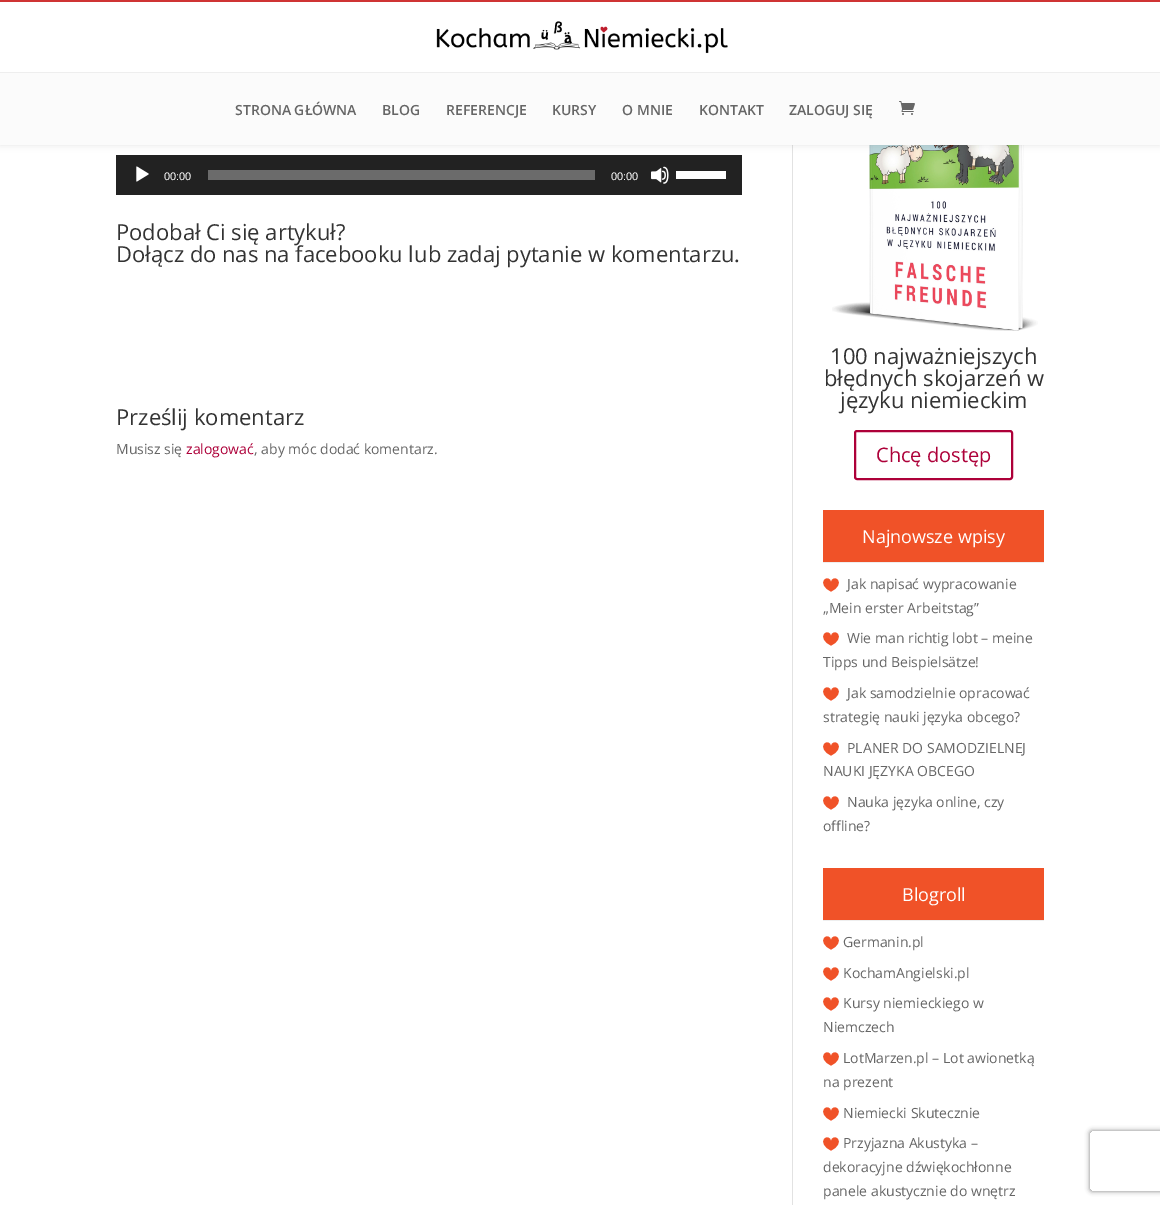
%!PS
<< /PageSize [1160 1205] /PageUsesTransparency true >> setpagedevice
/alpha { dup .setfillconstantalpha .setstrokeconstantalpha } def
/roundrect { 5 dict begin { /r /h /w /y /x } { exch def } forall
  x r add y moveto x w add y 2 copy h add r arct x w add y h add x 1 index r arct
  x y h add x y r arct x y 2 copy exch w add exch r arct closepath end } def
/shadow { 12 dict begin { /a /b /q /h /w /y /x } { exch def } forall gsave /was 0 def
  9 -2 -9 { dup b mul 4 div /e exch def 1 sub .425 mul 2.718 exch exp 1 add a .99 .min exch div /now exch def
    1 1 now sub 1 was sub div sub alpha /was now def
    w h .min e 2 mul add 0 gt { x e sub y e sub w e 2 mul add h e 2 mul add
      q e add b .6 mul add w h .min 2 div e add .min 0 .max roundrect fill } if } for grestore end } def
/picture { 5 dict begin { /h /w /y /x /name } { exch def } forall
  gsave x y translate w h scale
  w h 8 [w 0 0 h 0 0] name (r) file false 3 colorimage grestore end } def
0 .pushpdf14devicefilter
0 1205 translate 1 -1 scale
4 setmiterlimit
1 setgray
0 0 1160 1205 rectfill
0.886 setgray
792 145 1 1060 rectfill
0.133 setgray
116 155 626 40 rectfill
(img5.rgb) 832 145 206 186 picture
0 setgray
0 0 1160 145 0 3.5 0.1 shadow
1 setgray
0 2 1160 70 rectfill
0.812 0.204 0.204 setrgbcolor
0 0 1160 2 rectfill
(img1.rgb) 436 21 292 33 picture
0.984 setgray
0 73 1160 72 rectfill
0.933 setgray
0 72 1160 1 rectfill
/OpenSans-SemiBold [14 0 0 -14 0 0] selectfont
0.4 setgray
235 115 moveto (STRONA GŁÓWNA) show
382 115 moveto (BLOG) show
446 115 moveto (REFERENCJE) show
552 115 moveto (KURSY) show
622 115 moveto (O MNIE) show
699 115 moveto (KONTAKT) show
789 115 moveto (ZALOGUJ SIĘ) show
(img2.rgb) 899 101 16 14 picture
(img3.rgb) 136 166 13 16 picture
/LiberationSans-Regular [11 0 0 -11 0 0] selectfont
1 setgray
164 180 moveto (00:00) show
0.42 setgray
208 170 387 10 rectfill
1 setgray
611 180 moveto (00:00) show
(img4.rgb) 651 166 18 18 picture
676 171 50 8 rectfill
/OpenSans-Regular [22 0 0 -22 0 0] selectfont
0.2 setgray
116 240 moveto (Podobał Ci się artykuł?) show
116 262 moveto (Dołącz do nas na facebooku lub zadaj pytanie w komentarzu.) show
116 425 moveto (Prześlij komentarz) show
/OpenSans-Regular [14 0 0 -14 0 0] selectfont
0.4 setgray
116 454 moveto (Musisz się) show
0.678 0 0.224 setrgbcolor
186 454 moveto (zalogować) show
0.4 setgray
254 454 moveto (, aby móc dodać komentarz.) show
/OpenSans-Regular [22 0 0 -22 0 0] selectfont
0.2 setgray
830 364 moveto (100 najważniejszych) show
824 386 moveto (błędnych skojarzeń w) show
840 408 moveto (języku niemieckim) show
0.678 0 0.224 setrgbcolor
2 setlinewidth
855 431 157 48 2 roundrect stroke
/OpenSans-Regular [20 0 0 -20 0 0] selectfont
876 462 moveto (Chcę dostęp) show
0.941 0.322 0.157 setrgbcolor
823 510 221 52 rectfill
0.933 setgray
823 562 221 1 rectfill
/OpenSans-Regular [18 0 0 -18 0 0] selectfont
1 setgray
862 543 moveto (Najnowsze wpisy) show
(img6.rgb) 823 578 16 14 picture
/OpenSans-Regular [14 0 0 -14 0 0] selectfont
0.4 setgray
847 589 moveto (Jak napisać wypracowanie) show
823 613 moveto („Mein erster Arbeitstag”) show
(img6.rgb) 823 632 16 14 picture
847 643 moveto (Wie man richtig lobt – meine) show
823 667 moveto (Tipps und Beispielsätze!) show
(img6.rgb) 823 687 16 14 picture
847 698 moveto (Jak samodzielnie opracować) show
823 722 moveto (strategię nauki języka obcego?) show
(img6.rgb) 823 742 16 14 picture
847 753 moveto (PLANER DO SAMODZIELNEJ) show
823 776 moveto (NAUKI JĘZYKA OBCEGO) show
(img6.rgb) 823 796 16 14 picture
847 807 moveto (Nauka języka online, czy) show
823 831 moveto (offline?) show
0.941 0.322 0.157 setrgbcolor
823 868 221 52 rectfill
0.933 setgray
823 920 221 1 rectfill
/OpenSans-Regular [18 0 0 -18 0 0] selectfont
1 setgray
902 901 moveto (Blogroll) show
(img6.rgb) 823 936 16 14 picture
/OpenSans-Regular [14 0 0 -14 0 0] selectfont
0.4 setgray
843 947 moveto (Germanin.pl) show
(img6.rgb) 823 967 16 14 picture
843 978 moveto (KochamAngielski.pl) show
(img6.rgb) 823 997 16 14 picture
843 1008 moveto (Kursy niemieckiego w) show
823 1032 moveto (Niemczech) show
(img6.rgb) 823 1052 16 14 picture
843 1063 moveto (LotMarzen.pl – Lot awionetką) show
823 1087 moveto (na prezent) show
(img6.rgb) 823 1107 16 14 picture
843 1118 moveto (Niemiecki Skutecznie) show
(img6.rgb) 823 1137 16 14 picture
843 1148 moveto (Przyjazna Akustyka –) show
823 1172 moveto (dekoracyjne dźwiękochłonne) show
823 1196 moveto (panele akustycznie do wnętrz) show
gsave
newpath 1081 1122 moveto 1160 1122 lineto 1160 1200 lineto 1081 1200 lineto closepath 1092 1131 moveto 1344 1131 lineto 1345 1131 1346 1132 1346 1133 curveto 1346 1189 lineto 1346 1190 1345 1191 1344 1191 curveto 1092 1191 lineto 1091 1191 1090 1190 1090 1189 curveto 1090 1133 lineto 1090 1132 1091 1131 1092 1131 curveto closepath eoclip newpath
0.502 setgray
1090 1131 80 60 2 2.5 1 shadow
grestore
.poppdf14devicefilter showpage
